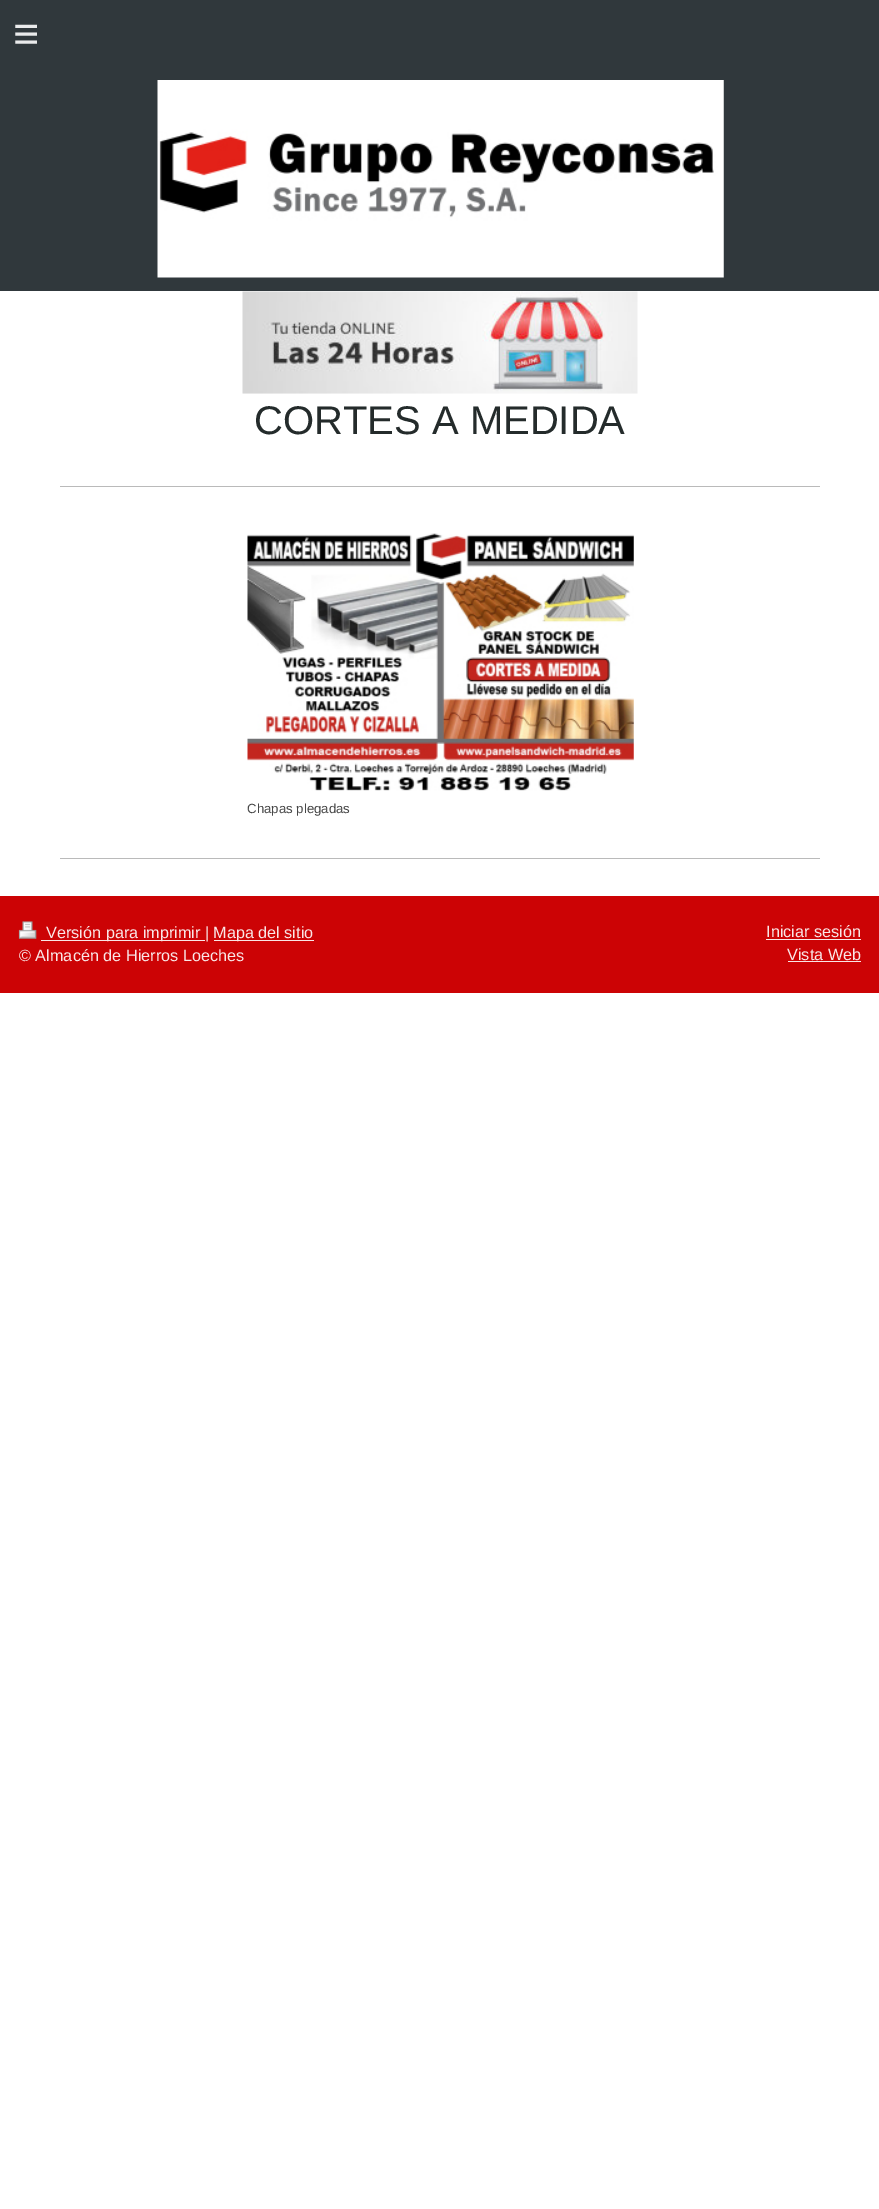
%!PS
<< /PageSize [879 2209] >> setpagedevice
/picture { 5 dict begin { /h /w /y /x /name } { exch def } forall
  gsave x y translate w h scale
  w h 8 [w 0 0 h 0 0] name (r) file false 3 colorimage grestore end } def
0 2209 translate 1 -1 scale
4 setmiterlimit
1 setgray
0 0 879 2209 rectfill
0.188 0.22 0.235 setrgbcolor
0 0 879 291 rectfill
/LiberationSans-Regular [45 0 0 -45 0 0] selectfont
0.918 0.922 0.925 setrgbcolor
13 49 moveto 13 0 (≡) ashow
(img1.rgb) 157 80 567 198 picture
(img2.rgb) 242 291 396 103 picture
/LiberationSans-Regular [40 0 0 -40 0 0] selectfont
0.141 0.169 0.169 setrgbcolor
254 434 moveto (CORTES A MEDIDA) show
0.729 setgray
60 486 760 1 rectfill
(img3.rgb) 247 533 387 258 picture
/LiberationSans-Regular [13.25 0 0 -13.25 0 0] selectfont
0.278 setgray
247 813 moveto (Chapas plegadas) show
0.729 setgray
60 858 760 1 rectfill
0.8 0.012 0.02 setrgbcolor
0 896 879 97 rectfill
(img4.rgb) 18 921 19 18 picture
0.98 0.902 0.902 setrgbcolor
41 940 164 1 rectfill
/LiberationSans-Regular [16.25 0 0 -16.25 0 0] selectfont
46 938 moveto (Versión para imprimir |) show
214 940 100 1 rectfill
213 938 moveto (Mapa del sitio) show
19 961 moveto (© Almacén de Hierros Loeches) show
766 937 moveto (Iniciar sesión) show
766 939 95 1 rectfill
787 960 moveto (Vista Web) show
788 961 73 1 rectfill
showpage
